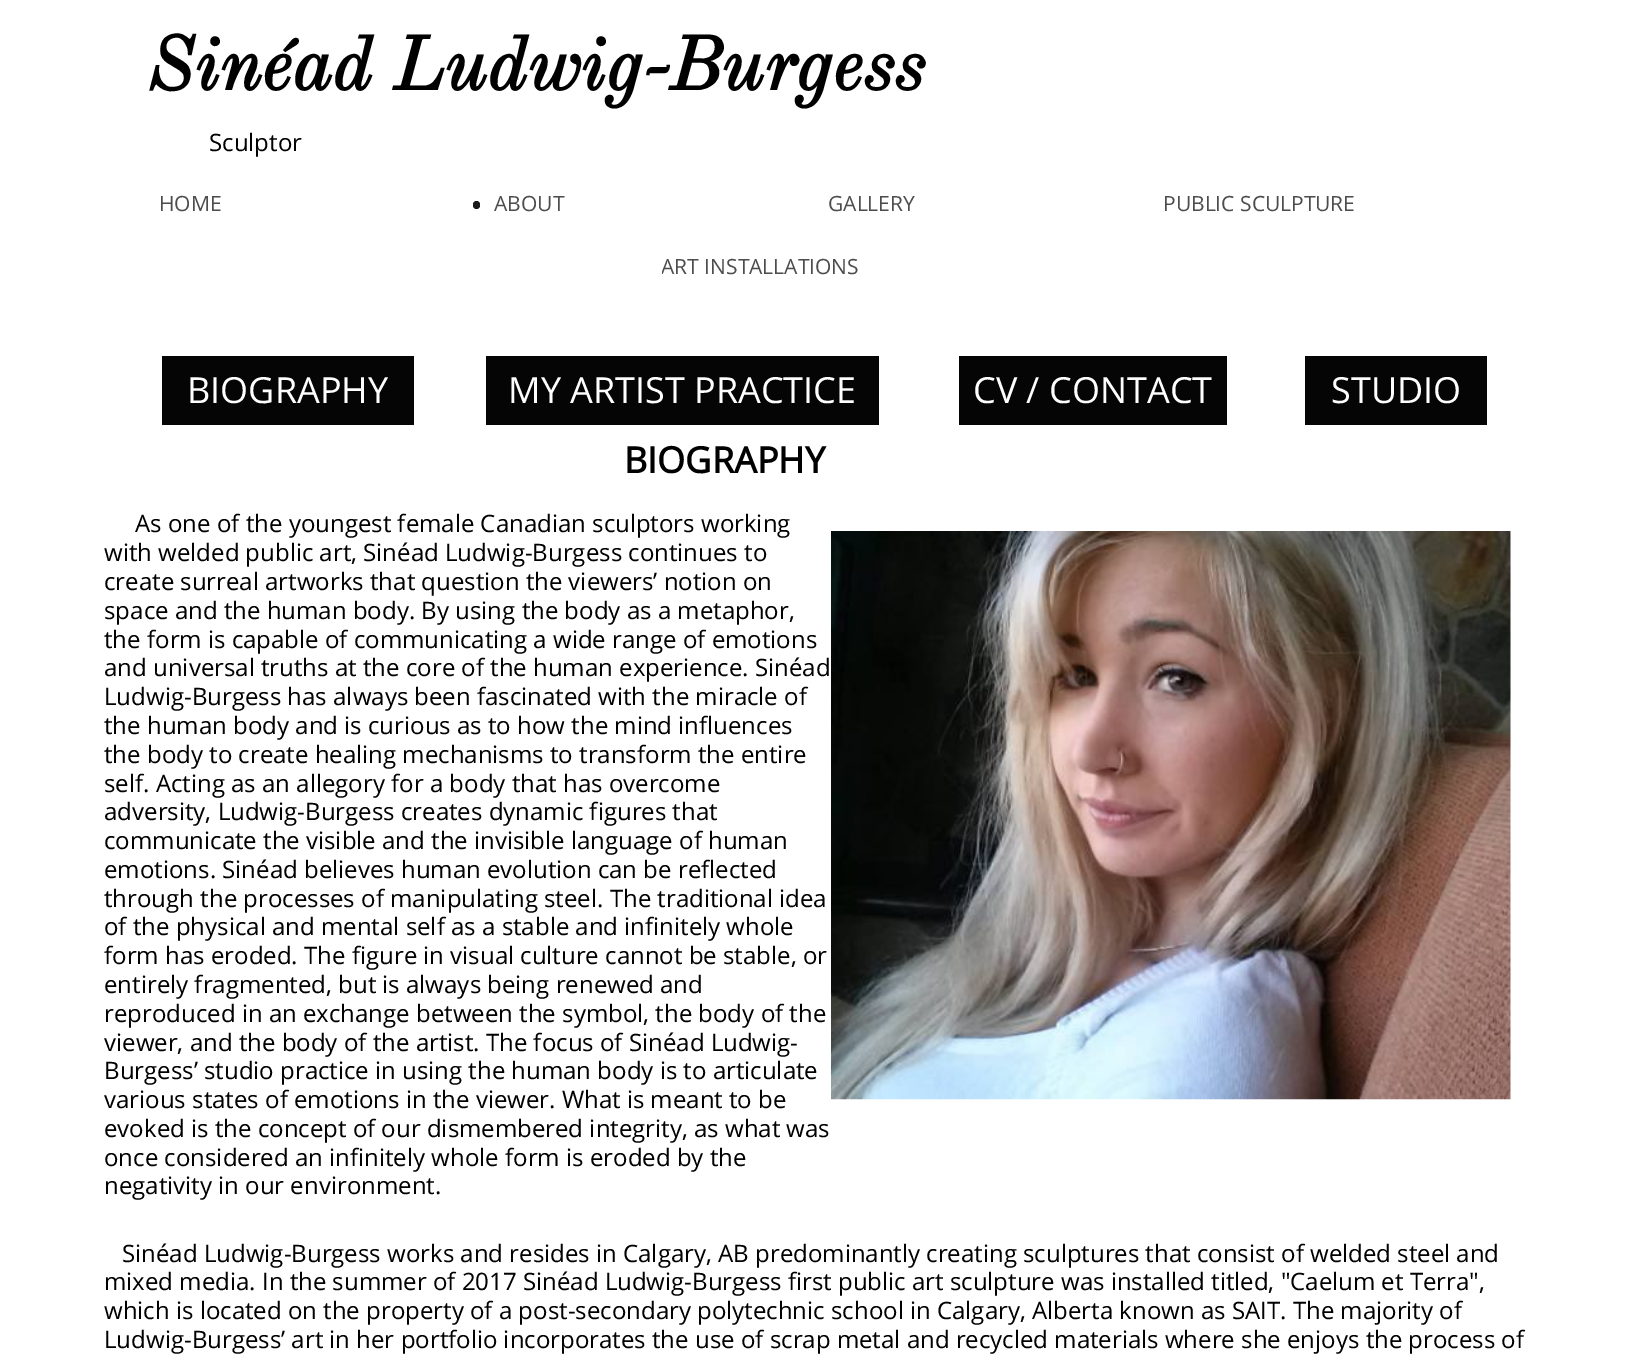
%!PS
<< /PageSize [1646 1354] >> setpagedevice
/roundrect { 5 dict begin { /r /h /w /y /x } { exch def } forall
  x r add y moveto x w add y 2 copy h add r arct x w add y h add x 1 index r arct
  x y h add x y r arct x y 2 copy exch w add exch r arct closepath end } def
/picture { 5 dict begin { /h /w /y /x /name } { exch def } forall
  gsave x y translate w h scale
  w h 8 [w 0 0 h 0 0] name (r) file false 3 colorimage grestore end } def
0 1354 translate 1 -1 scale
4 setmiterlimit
1 setgray
0 0 1646 1354 rectfill
/OldStandardTT-BoldItalic [75 0 0 -75 0 0] selectfont
0 setgray
147 90 moveto (Sinéad Ludwig-Burgess) show
/OpenSans-Regular [24 0 0 -24 0 0] selectfont
209 151 moveto (Sculptor) show
/OpenSans-Regular [21 0 0 -21 0 0] selectfont
0.302 setgray
159 211 moveto (HOME) show
0.102 setgray
473 201 7 8 3.5 roundrect fill
0.302 setgray
494 211 moveto (ABOUT) show
828 211 moveto (GALLERY) show
1163 211 moveto (PUBLIC SCULPTURE) show
gsave
662 245 280 45 rectclip
661 274 moveto (ART INSTALLATIONS) show
grestore
0.02 setgray
162 356 252 69 rectfill
/OpenSans-Regular [36 0 0 -36 0 0] selectfont
1 setgray
187 403 moveto (BIOGRAPHY) show
0.02 setgray
486 356 393 69 rectfill
1 setgray
508 403 moveto (MY ARTIST PRACTICE) show
0.02 setgray
959 356 268 69 rectfill
1 setgray
973 403 moveto (CV / CONTACT) show
0.02 setgray
1305 356 182 69 rectfill
1 setgray
1331 403 moveto (STUDIO) show
/OpenSans-Bold [36 0 0 -36 0 0] selectfont
0 setgray
624 473 moveto (BIOGRAPHY) show
/OpenSans-Regular [24 0 0 -24 0 0] selectfont
135 532 moveto (As one of the youngest female Canadian sculptors working) show
104 561 moveto (with welded public art, Sinéad Ludwig-Burgess continues to) show
104 590 moveto (create surreal artworks that question the viewers’ notion on) show
104 619 moveto (space and the human body. By using the body as a metaphor,) show
104 648 moveto (the form is capable of communicating a wide range of emotions) show
104 676 moveto (and universal truths at the core of the human experience. Sinéad) show
104 705 moveto (Ludwig-Burgess has always been fascinated with the miracle of) show
104 734 moveto (the human body and is curious as to how the mind influences) show
104 763 moveto (the body to create healing mechanisms to transform the entire) show
104 792 moveto (self. Acting as an allegory for a body that has overcome) show
104 820 moveto (adversity, Ludwig-Burgess creates dynamic figures that) show
104 849 moveto (communicate the visible and the invisible language of human) show
104 878 moveto (emotions. Sinéad believes human evolution can be reflected) show
104 907 moveto (through the processes of manipulating steel. The traditional idea) show
104 935 moveto (of the physical and mental self as a stable and infinitely whole) show
104 964 moveto (form has eroded. The figure in visual culture cannot be stable, or) show
104 993 moveto (entirely fragmented, but is always being renewed and) show
104 1022 moveto (reproduced in an exchange between the symbol, the body of the) show
104 1051 moveto (viewer, and the body of the artist. The focus of Sinéad Ludwig-) show
104 1079 moveto (Burgess’ studio practice in using the human body is to articulate) show
104 1108 moveto (various states of emotions in the viewer. What is meant to be) show
104 1137 moveto (evoked is the concept of our dismembered integrity, as what was) show
104 1166 moveto (once considered an infinitely whole form is eroded by the) show
104 1194 moveto (negativity in our environment.) show
(img1.rgb) 831 531 680 569 picture
122 1262 moveto (Sinéad Ludwig-Burgess works and resides in Calgary, AB predominantly creating sculptures that consist of welded steel and) show
104 1290 moveto (mixed media. In the summer of 2017 Sinéad Ludwig-Burgess first public art sculpture was installed titled, "Caelum et Terra",) show
104 1319 moveto (which is located on the property of a post-secondary polytechnic school in Calgary, Alberta known as SAIT. The majority of) show
104 1348 moveto (Ludwig-Burgess’ art in her portfolio incorporates the use of scrap metal and recycled materials where she enjoys the process of) show
showpage
